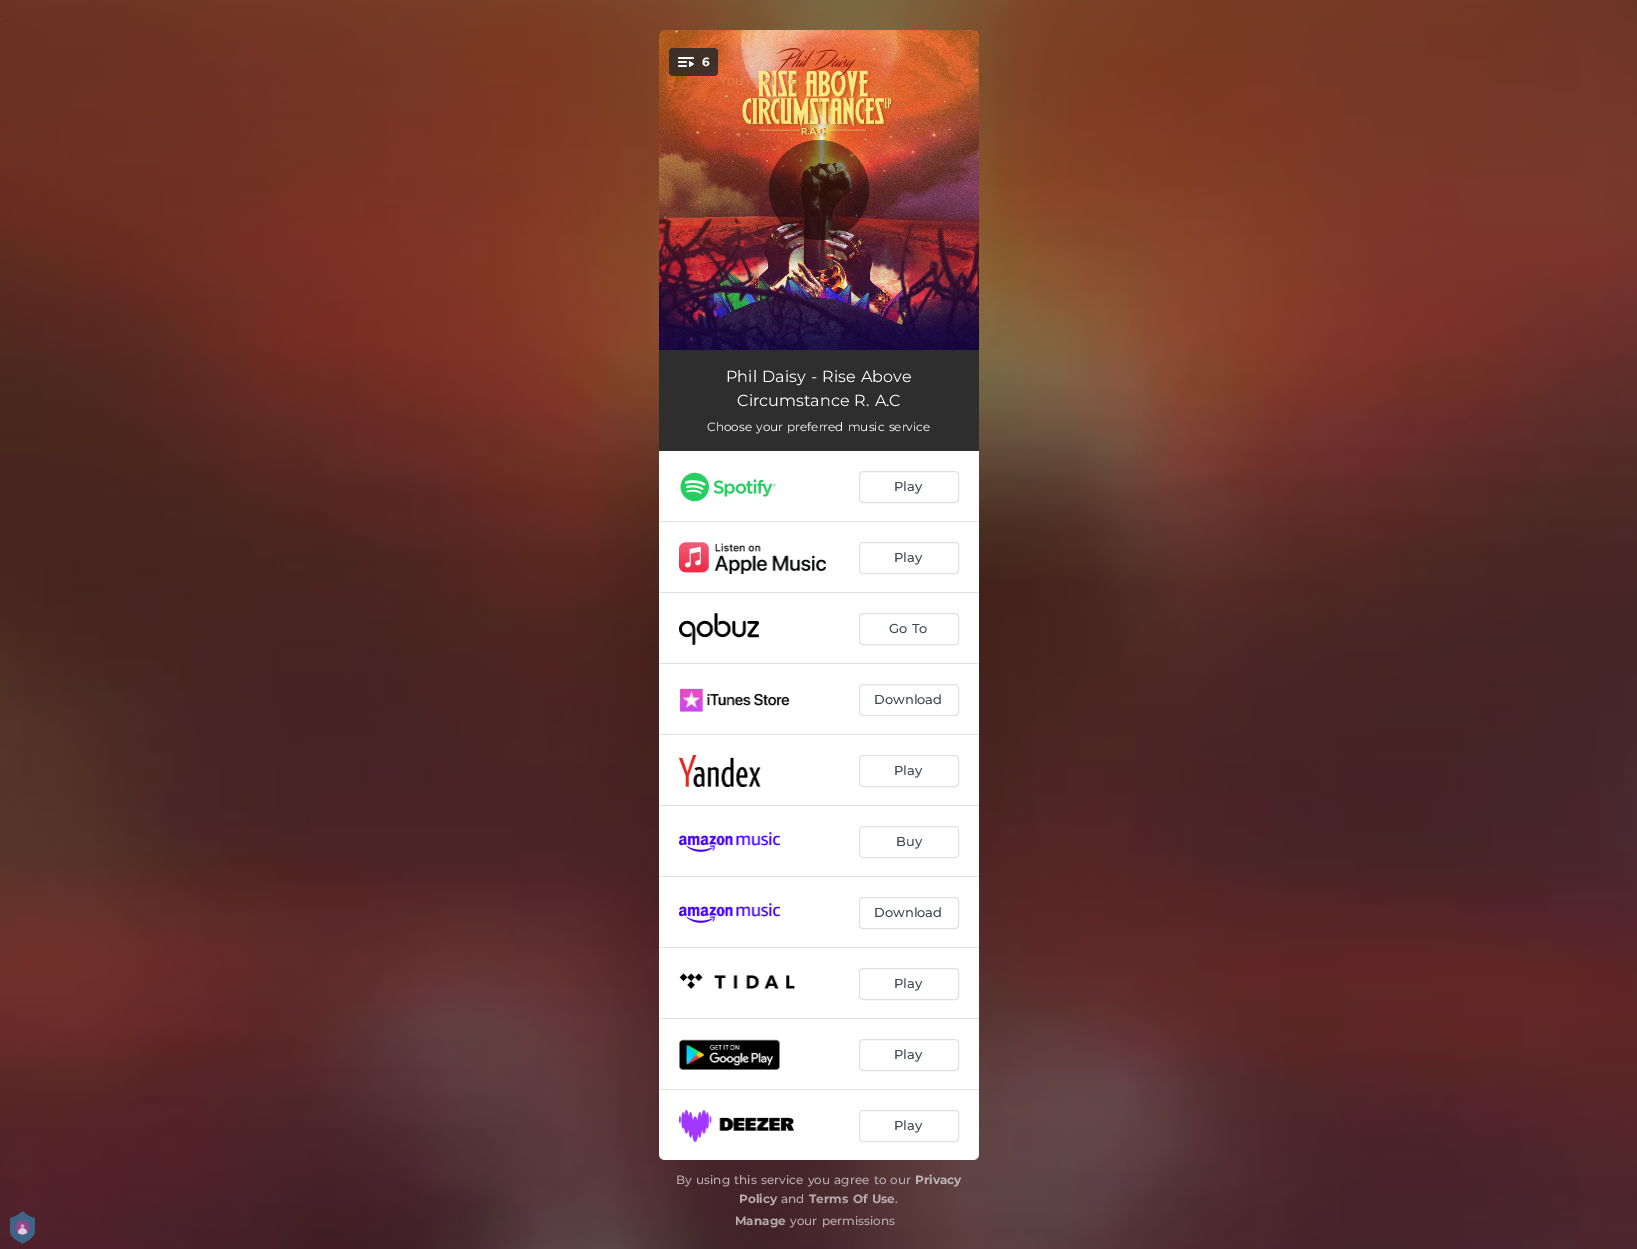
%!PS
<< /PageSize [1637 1249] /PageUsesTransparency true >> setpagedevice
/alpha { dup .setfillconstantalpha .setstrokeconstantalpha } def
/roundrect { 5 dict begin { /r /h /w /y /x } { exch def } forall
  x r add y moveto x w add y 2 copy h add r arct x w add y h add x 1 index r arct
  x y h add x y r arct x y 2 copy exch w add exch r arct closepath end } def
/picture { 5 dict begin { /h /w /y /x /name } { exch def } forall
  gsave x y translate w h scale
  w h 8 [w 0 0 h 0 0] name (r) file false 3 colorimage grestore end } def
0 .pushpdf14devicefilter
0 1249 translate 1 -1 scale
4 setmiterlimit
1 setgray
0 0 1637 1249 rectfill
(img2.rgb) 0 0 1637 1249 picture
(img1.rgb) 10 1211 25 33 picture
(img3.rgb) 659 30 320 320 picture
0.85 alpha
0.157 setgray
669 48 49 28 4 roundrect fill
1 alpha
(img4.rgb) 678 57 16 10 picture
/Montserrat-Bold [12 0 0 -12 0 0] selectfont
1 setgray
702 66 moveto (6) show
0.45 alpha
0 setgray
newpath 819 190 50 0 360 arc closepath fill
/Montserrat-Regular [13 0 0 -13 0 0] selectfont
1 alpha
0.898 0.529 0.318 setrgbcolor
719 85 moveto 1 0 32 (You're all set!) widthshow
0.18 setgray
659 350 320 101 rectfill
/Montserrat-Regular [16 0 0 -16 0 0] selectfont
1 setgray
726 382 moveto 1 0 32 (Phil Daisy - Rise Above) widthshow
737 406 moveto 1 0 32 (Circumstance R. A.C) widthshow
/Montserrat-Regular [12 0 0 -12 0 0] selectfont
707 431 moveto 1 0 32 (Choose your preferred music service) widthshow
newpath 659 451 moveto 979 451 lineto 979 1154 lineto 979 1157.5 976.5 1160 973 1160 curveto 665 1160 lineto 661.5 1160 659 1157.5 659 1154 curveto closepath fill
0.882 0.882 0.894 setrgbcolor
659 521 320 1 rectfill
(img5.rgb) 680 472 96 30 picture
859.5 471.5 99 31 3.5 roundrect stroke
/Montserrat-Medium [13 0 0 -13 0 0] selectfont
0.255 0.278 0.329 setrgbcolor
894 491 moveto (Play) show
0.882 0.882 0.894 setrgbcolor
659 592 320 1 rectfill
(img6.rgb) 679 542 147 32 picture
859.5 542.5 99 31 3.5 roundrect stroke
0.255 0.278 0.329 setrgbcolor
894 562 moveto (Play) show
0.882 0.882 0.894 setrgbcolor
659 663 320 1 rectfill
(img7.rgb) 679 613 80 32 picture
859.5 613.5 99 31 3.5 roundrect stroke
0.255 0.278 0.329 setrgbcolor
889 633 moveto 1 0 32 (Go To) widthshow
0.882 0.882 0.894 setrgbcolor
659 734 320 1 rectfill
(img8.rgb) 680 688 110 24 picture
859.5 684.5 99 31 3.5 roundrect stroke
0.255 0.278 0.329 setrgbcolor
874 704 moveto (Download) show
0.882 0.882 0.894 setrgbcolor
659 805 320 1 rectfill
(img9.rgb) 679 755 82 32 picture
859.5 755.5 99 31 3.5 roundrect stroke
0.255 0.278 0.329 setrgbcolor
894 775 moveto (Play) show
0.882 0.882 0.894 setrgbcolor
659 876 320 1 rectfill
(img10.rgb) 679 832 101 20 picture
859.5 826.5 99 31 3.5 roundrect stroke
0.255 0.278 0.329 setrgbcolor
896 846 moveto (Buy) show
0.882 0.882 0.894 setrgbcolor
659 947 320 1 rectfill
(img10.rgb) 679 903 101 20 picture
859.5 897.5 99 31 3.5 roundrect stroke
0.255 0.278 0.329 setrgbcolor
874 917 moveto (Download) show
0.882 0.882 0.894 setrgbcolor
659 1018 320 1 rectfill
(img11.rgb) 679 973 116 16 picture
859.5 968.5 99 31 3.5 roundrect stroke
0.255 0.278 0.329 setrgbcolor
894 988 moveto (Play) show
0.882 0.882 0.894 setrgbcolor
659 1089 320 1 rectfill
(img12.rgb) 679 1039 101 31 picture
859.5 1039.5 99 31 3.5 roundrect stroke
0.255 0.278 0.329 setrgbcolor
894 1059 moveto (Play) show
(img13.rgb) 679 1110 115 32 picture
0.882 0.882 0.894 setrgbcolor
859.5 1110.5 99 31 3.5 roundrect stroke
0.255 0.278 0.329 setrgbcolor
894 1130 moveto (Play) show
/Montserrat-Medium [12 0 0 -12 0 0] selectfont
0.714 0.667 0.675 setrgbcolor
676 1184 moveto 1 0 32 (By using this service you agree to our) widthshow
/Montserrat-Bold [12 0 0 -12 0 0] selectfont
0.745 0.698 0.698 setrgbcolor
915 1184 moveto (Privacy) show
0.714 0.667 0.675 setrgbcolor
739 1203 moveto (Policy) show
/Montserrat-Medium [12 0 0 -12 0 0] selectfont
781 1203 moveto (and) show
/Montserrat-Bold [12 0 0 -12 0 0] selectfont
809 1203 moveto 1 0 32 (Terms Of Use) widthshow
/Montserrat-Medium [12 0 0 -12 0 0] selectfont
0.745 0.698 0.698 setrgbcolor
895 1203 moveto (.) show
/Montserrat-Bold [12 0 0 -12 0 0] selectfont
0.714 0.667 0.675 setrgbcolor
735 1225 moveto (Manage) show
/Montserrat-Medium [12 0 0 -12 0 0] selectfont
790 1225 moveto 1 0 32 (your permissions) widthshow
.poppdf14devicefilter showpage
